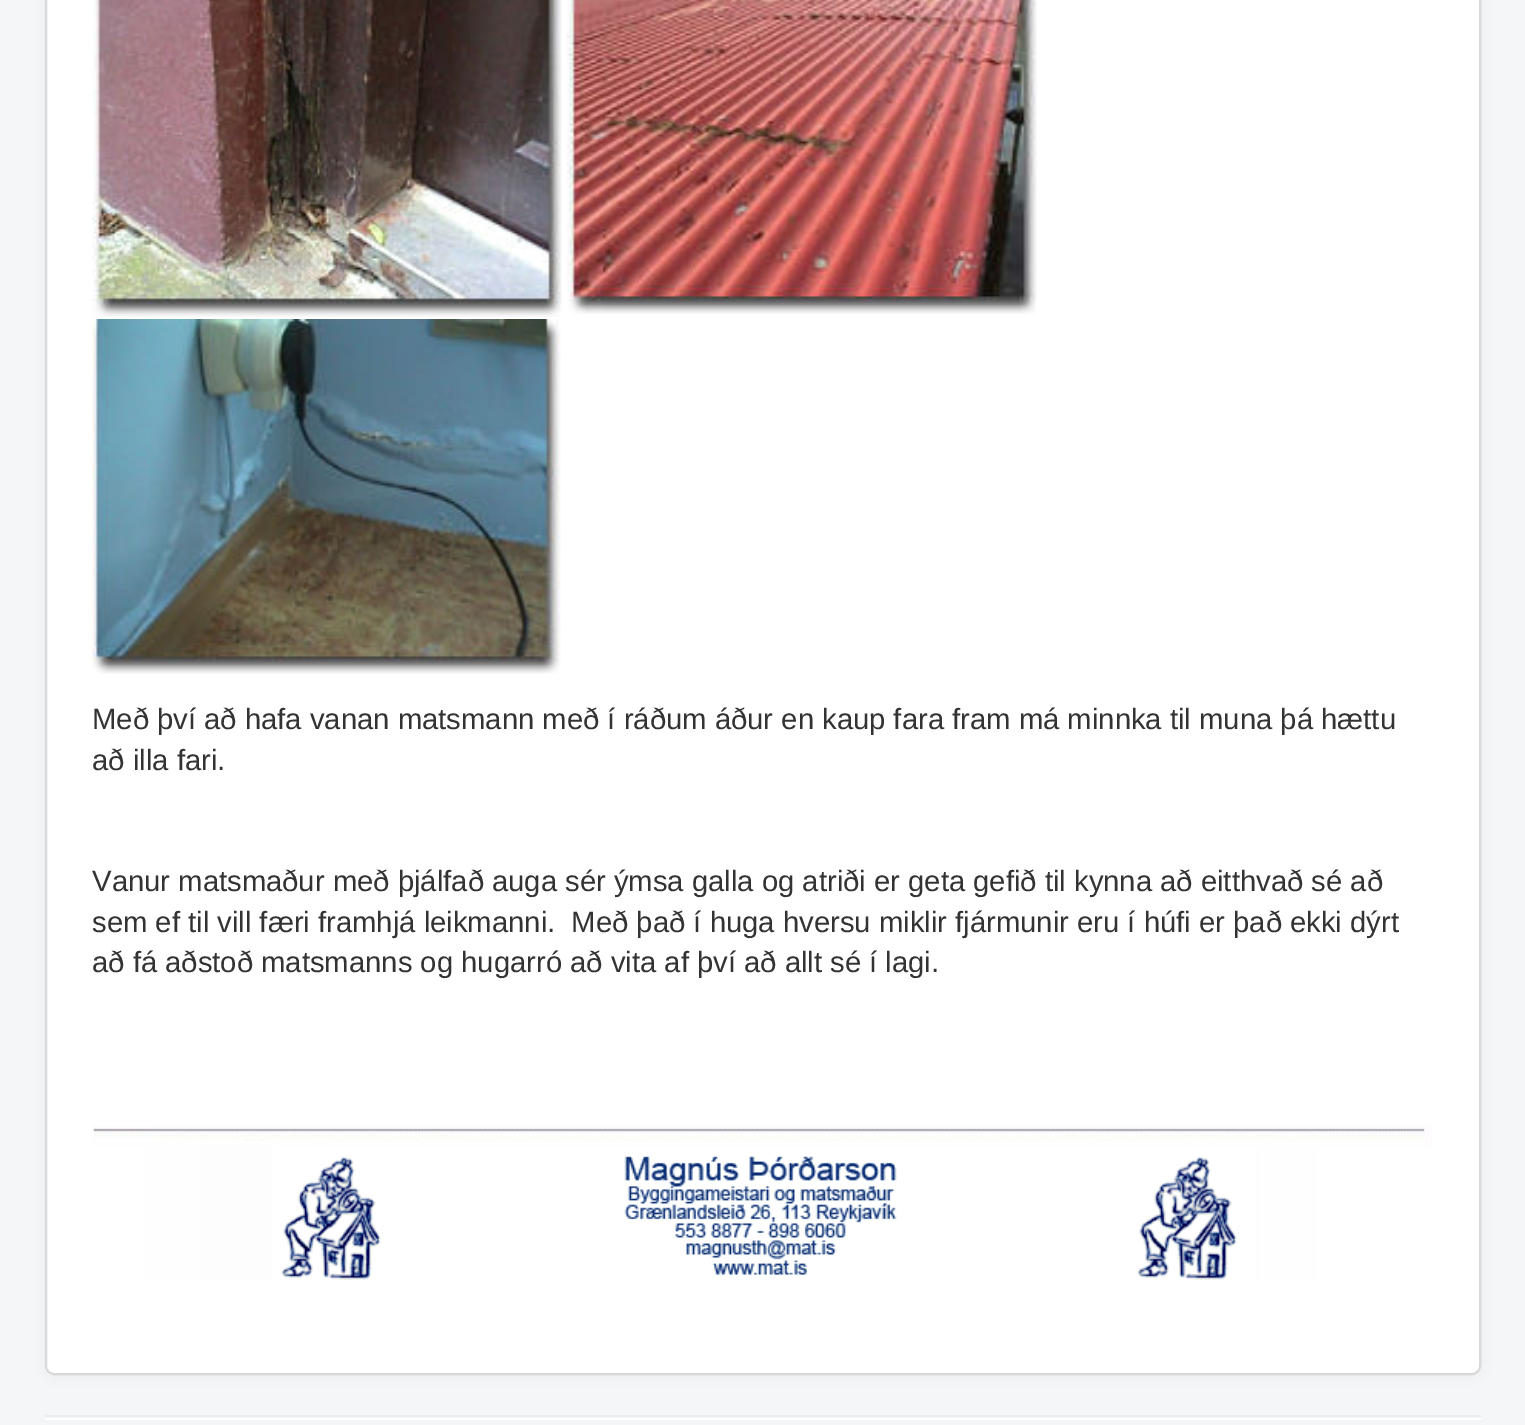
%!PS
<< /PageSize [1525 1425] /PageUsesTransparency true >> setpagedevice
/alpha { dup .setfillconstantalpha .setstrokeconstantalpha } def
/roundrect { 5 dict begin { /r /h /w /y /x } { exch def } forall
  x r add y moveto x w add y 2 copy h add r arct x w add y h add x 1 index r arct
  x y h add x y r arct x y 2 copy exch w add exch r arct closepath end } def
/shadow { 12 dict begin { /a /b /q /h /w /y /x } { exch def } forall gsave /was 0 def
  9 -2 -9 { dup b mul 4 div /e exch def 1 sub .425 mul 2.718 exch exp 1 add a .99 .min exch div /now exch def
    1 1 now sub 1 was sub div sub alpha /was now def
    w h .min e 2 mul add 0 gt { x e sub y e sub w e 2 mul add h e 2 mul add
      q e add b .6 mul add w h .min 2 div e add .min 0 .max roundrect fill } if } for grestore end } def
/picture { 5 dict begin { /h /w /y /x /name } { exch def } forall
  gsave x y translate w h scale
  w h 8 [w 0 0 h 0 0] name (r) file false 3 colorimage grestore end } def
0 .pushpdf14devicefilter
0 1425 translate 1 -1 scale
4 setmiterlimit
0.957 0.965 0.969 setrgbcolor
0 0 1525 1425 rectfill
0 setgray
45 -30 1436 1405 9 7 0.05 shadow
1 setgray
45 -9 1436 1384 9 roundrect fill
0.15 alpha
0 setgray
2 setlinewidth
46 -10 1434 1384 8 roundrect stroke
1 alpha
(img1.rgb) 92 0 470 317 picture
(img2.rgb) 567 0 470 314 picture
(img3.rgb) 92 319 469 355 picture
/LiberationSans-Regular [29.25 0 0 -29.25 0 0] selectfont
0.2 setgray
92 729 moveto (Með því að hafa vanan matsmann með í ráðum áður en kaup fara fram má minnka til muna þá hættu) show
92 770 moveto (að illa fari.) show
92 891 moveto (Vanur matsmaður með þjálfað auga sér ýmsa galla og atriði er geta gefið til kynna að eitthvað sé að) show
92 932 moveto (sem ef til vill færi framhjá leikmanni.  Með það í huga hversu miklir fjármunir eru í húfi er það ekki dýrt) show
92 972 moveto (að fá aðstoð matsmanns og hugarró að vita af því að allt sé í lagi.) show
(img4.rgb) 92 1124 1340 157 picture
0.933 setgray
45 1415 1436 2 rectfill
1 setgray
45 1418 1436 2 rectfill
.poppdf14devicefilter showpage
